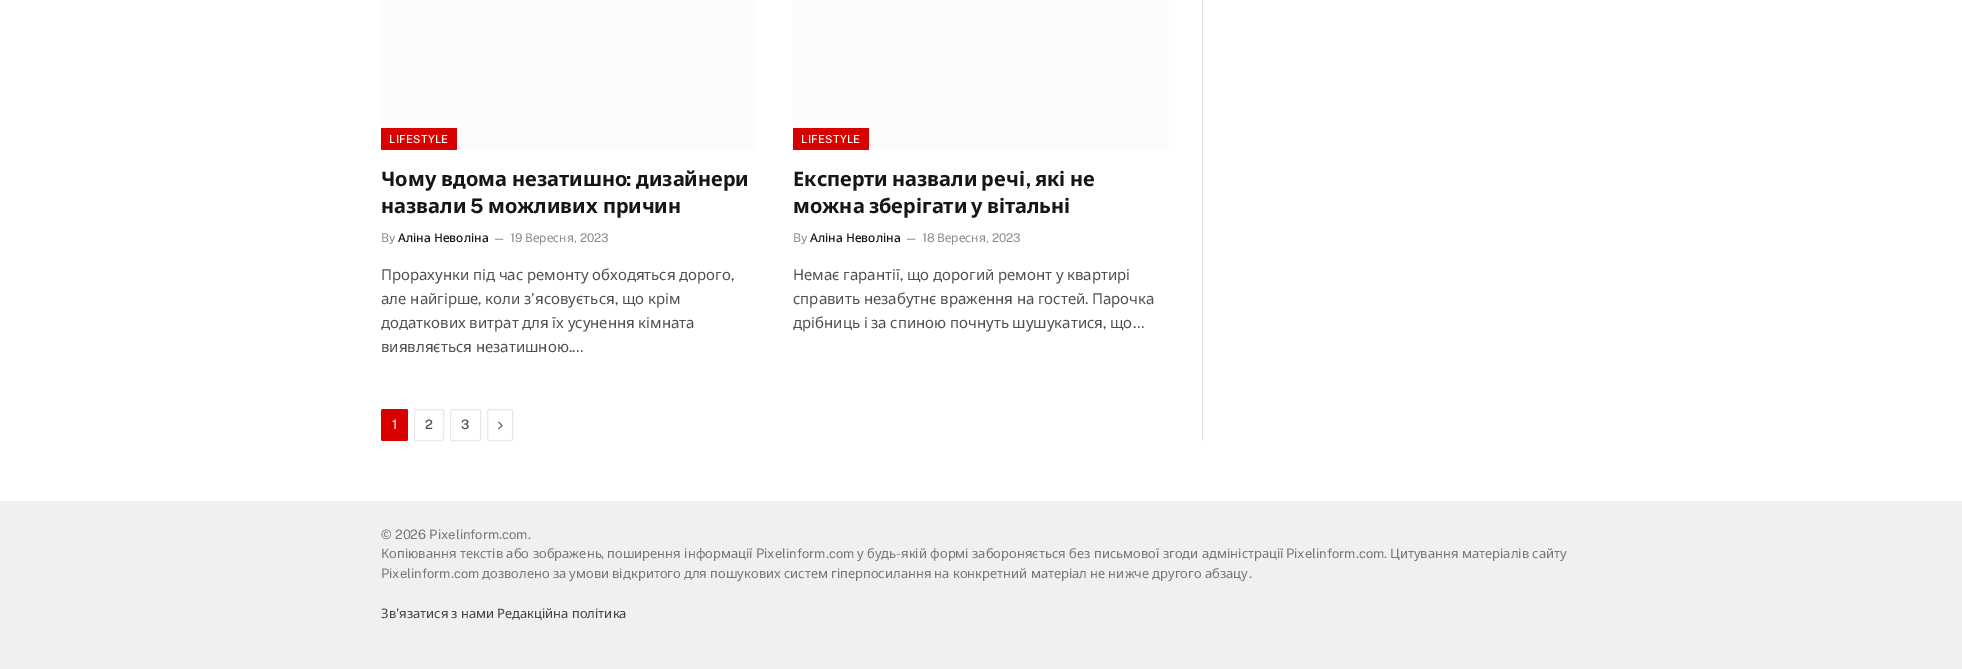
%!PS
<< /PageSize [1962 669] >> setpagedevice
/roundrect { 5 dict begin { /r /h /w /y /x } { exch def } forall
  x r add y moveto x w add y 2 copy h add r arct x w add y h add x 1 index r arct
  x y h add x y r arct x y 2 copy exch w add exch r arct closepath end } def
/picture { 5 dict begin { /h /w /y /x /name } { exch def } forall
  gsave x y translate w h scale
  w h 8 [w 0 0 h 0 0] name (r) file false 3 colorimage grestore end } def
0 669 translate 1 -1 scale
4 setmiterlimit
1 setgray
0 0 1962 669 rectfill
0.988 setgray
381 0 376 150 rectfill
0.859 0 0 setrgbcolor
381 128 76 22 1 roundrect fill
/PublicSans-Thin [11 0 0 -11 0 0] selectfont
1 setgray
389 143 moveto 0.25 0 (LIFESTYLE) ashow
/NotoSans-Bold [20 0 0 -20 0 0] selectfont
0.086 setgray
381 186 moveto (Чому вдома незатишно) show
/PublicSans-Bold [20 0 0 -20 0 0] selectfont
626 186 moveto (:) show
/NotoSans-Bold [20 0 0 -20 0 0] selectfont
636 186 moveto (дизайнери) show
381 213 moveto (назвали) show
/PublicSans-Bold [20 0 0 -20 0 0] selectfont
470 213 moveto (5) show
/NotoSans-Bold [20 0 0 -20 0 0] selectfont
488 213 moveto (можливих причин) show
/PublicSans-Regular [12 0 0 -12 0 0] selectfont
0.541 setgray
381 242 moveto (By) show
/NotoSans-Medium [12 0 0 -12 0 0] selectfont
0.086 setgray
398 242 moveto (Аліна Неволіна) show
/PublicSans-Regular [11 0 0 -11 0 0] selectfont
0.541 setgray
493 242 moveto (—) show
/PublicSans-Regular [12 0 0 -12 0 0] selectfont
510 242 moveto (19) show
/NotoSans-Regular [12 0 0 -12 0 0] selectfont
525 242 moveto (Вересня) show
/PublicSans-Regular [12 0 0 -12 0 0] selectfont
574 242 moveto (, 2023) show
/NotoSans-Regular [15 0 0 -15 0 0] selectfont
0.314 setgray
381 280 moveto -0.25 0 32 (Прорахунки під час ремонту обходяться дорого) widthshow
/PublicSans-Regular [15 0 0 -15 0 0] selectfont
731 280 moveto (,) show
/NotoSans-Regular [15 0 0 -15 0 0] selectfont
381 304 moveto (але найгірше) show
/PublicSans-Regular [15 0 0 -15 0 0] selectfont
478 304 moveto (,) show
/NotoSans-Regular [15 0 0 -15 0 0] selectfont
485 304 moveto (коли з) show
/PublicSans-Regular [15 0 0 -15 0 0] selectfont
531 304 moveto (’) show
/NotoSans-Regular [15 0 0 -15 0 0] selectfont
535 304 moveto (ясовується) show
/PublicSans-Regular [15 0 0 -15 0 0] selectfont
615 304 moveto (,) show
/NotoSans-Regular [15 0 0 -15 0 0] selectfont
622 304 moveto (що крім) show
381 328 moveto -0.25 0 32 (додаткових витрат для їх усунення кімната) widthshow
381 352 moveto -0.25 0 32 (виявляється незатишною) widthshow
/PublicSans-Regular [15 0 0 -15 0 0] selectfont
569 352 moveto (.…) show
0.988 setgray
793 0 376 150 rectfill
0.859 0 0 setrgbcolor
793 128 76 22 1 roundrect fill
/PublicSans-Thin [11 0 0 -11 0 0] selectfont
1 setgray
801 143 moveto 0.25 0 (LIFESTYLE) ashow
/NotoSans-Bold [20 0 0 -20 0 0] selectfont
0.086 setgray
793 186 moveto -1 0 32 (Експерти назвали речі) widthshow
/PublicSans-Bold [20 0 0 -20 0 0] selectfont
1026 186 moveto (,) show
/NotoSans-Bold [20 0 0 -20 0 0] selectfont
1035 186 moveto -1 0 32 (які не) widthshow
793 213 moveto -1 0 32 (можна зберігати у вітальні) widthshow
/PublicSans-Regular [12 0 0 -12 0 0] selectfont
0.541 setgray
793 242 moveto (By) show
/NotoSans-Medium [12 0 0 -12 0 0] selectfont
0.086 setgray
810 242 moveto (Аліна Неволіна) show
/PublicSans-Regular [11 0 0 -11 0 0] selectfont
0.541 setgray
905 242 moveto (—) show
/PublicSans-Regular [12 0 0 -12 0 0] selectfont
922 242 moveto (18) show
/NotoSans-Regular [12 0 0 -12 0 0] selectfont
937 242 moveto (Вересня) show
/PublicSans-Regular [12 0 0 -12 0 0] selectfont
986 242 moveto (, 2023) show
/NotoSans-Regular [15 0 0 -15 0 0] selectfont
0.314 setgray
793 280 moveto -0.25 0 32 (Немає гарантії) widthshow
/PublicSans-Regular [15 0 0 -15 0 0] selectfont
900 280 moveto (,) show
/NotoSans-Regular [15 0 0 -15 0 0] selectfont
907 280 moveto -0.25 0 32 (що дорогий ремонт у квартирі) widthshow
793 304 moveto -0.25 0 32 (справить незабутнє враження на гостей) widthshow
/PublicSans-Regular [15 0 0 -15 0 0] selectfont
1085 304 moveto (.) show
/NotoSans-Regular [15 0 0 -15 0 0] selectfont
1092 304 moveto (Парочка) show
793 328 moveto -0.25 0 32 (дрібниць і за спиною почнуть шушукатися) widthshow
/PublicSans-Regular [15 0 0 -15 0 0] selectfont
1103 328 moveto (,) show
/NotoSans-Regular [15 0 0 -15 0 0] selectfont
1110 328 moveto (що) show
/PublicSans-Regular [15 0 0 -15 0 0] selectfont
1133 328 moveto (…) show
0.859 0 0 setrgbcolor
381 409 27 32 2 roundrect fill
/PublicSans-Thin [13 0 0 -13 0 0] selectfont
1 setgray
392 429 moveto (1) show
0.91 setgray
414.5 409.5 29 31 1.5 roundrect stroke
0.314 setgray
425 429 moveto (2) show
0.91 setgray
450.5 409.5 30 31 1.5 roundrect stroke
0.314 setgray
461 429 moveto (3) show
0.91 setgray
487.5 409.5 25 31 1.5 roundrect stroke
(img1.rgb) 498 421 5 9 picture
0.886 setgray
1202 0 1 441 rectfill
0.941 setgray
0 501 1962 168 rectfill
/PublicSans-Regular [13 0 0 -13 0 0] selectfont
0.467 setgray
381 539 moveto (© 2026 Pixelinform.com.) show
/NotoSans-Regular [13 0 0 -13 0 0] selectfont
381 558 moveto (Копіювання текстів або зображень) show
607 558 moveto (поширення інформації) show
/PublicSans-Regular [13 0 0 -13 0 0] selectfont
756 558 moveto (Pixelinform.com) show
/NotoSans-Regular [13 0 0 -13 0 0] selectfont
857 558 moveto (у будь) show
/PublicSans-Regular [13 0 0 -13 0 0] selectfont
896 558 moveto (-) show
/NotoSans-Regular [13 0 0 -13 0 0] selectfont
901 558 moveto (якій формі забороняється без письмової згоди адміністрації) show
/PublicSans-Regular [13 0 0 -13 0 0] selectfont
1286 558 moveto (Pixelinform.com.) show
/NotoSans-Regular [13 0 0 -13 0 0] selectfont
1390 558 moveto (Цитування матеріалів сайту) show
/PublicSans-Regular [13 0 0 -13 0 0] selectfont
601 558 moveto (,) show
381 578 moveto (Pixelinform.com) show
/NotoSans-Regular [13 0 0 -13 0 0] selectfont
482 578 moveto -0.25 0 32 (дозволено за умови відкритого для пошукових систем гіперпосилання на конкретний матеріал не нижче другого абзацу) widthshow
/PublicSans-Regular [13 0 0 -13 0 0] selectfont
1249 578 moveto (.) show
/NotoSans-Regular [13 0 0 -13 0 0] selectfont
0.267 setgray
381 618 moveto (Зв) show
/PublicSans-Regular [13 0 0 -13 0 0] selectfont
396 618 moveto (') show
/NotoSans-Regular [13 0 0 -13 0 0] selectfont
399 618 moveto -0.25 0 32 (язатися з нами Редакційна політика) widthshow
showpage
